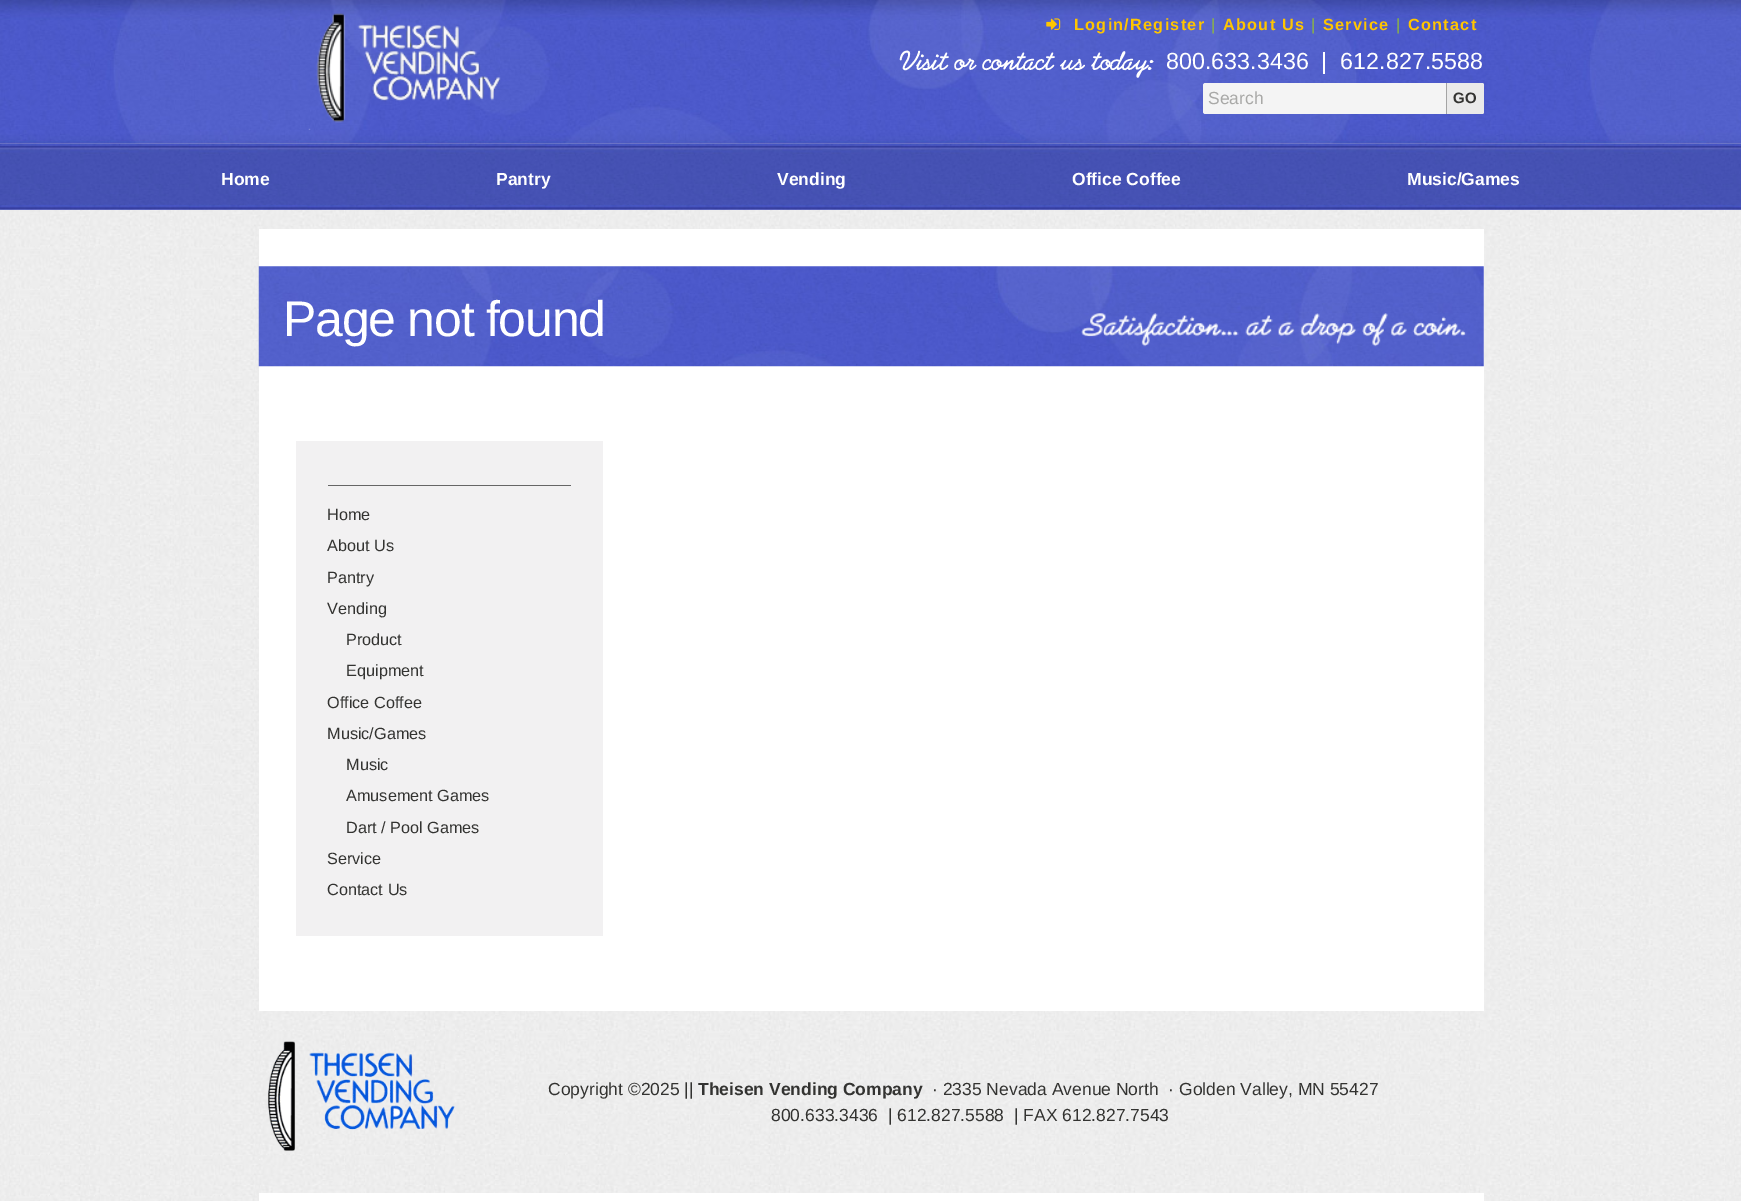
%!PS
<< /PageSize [1741 1201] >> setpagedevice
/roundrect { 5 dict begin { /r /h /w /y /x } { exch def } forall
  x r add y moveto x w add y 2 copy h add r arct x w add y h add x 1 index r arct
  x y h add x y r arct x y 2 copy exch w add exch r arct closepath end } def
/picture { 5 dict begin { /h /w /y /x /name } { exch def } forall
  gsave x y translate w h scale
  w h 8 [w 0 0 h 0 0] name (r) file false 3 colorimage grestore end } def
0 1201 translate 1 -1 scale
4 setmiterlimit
1 setgray
0 0 1741 1201 rectfill
(img1.rgb) 0 143 1741 1058 picture
(img2.rgb) 0 0 1741 144 picture
(img3.rgb) 308 13 193 117 picture
(img4.rgb) 1046 18 15 12 picture
/LiberationSans-Bold [16.25 0 0 -16.25 0 0] selectfont
1 0.773 0 setrgbcolor
1074 30 moveto 1.25 0 (Login/Register) ashow
/LiberationSans-Regular [16.25 0 0 -16.25 0 0] selectfont
0.58 0.757 0.192 setrgbcolor
1211 30 moveto 1.25 0 (|) ashow
/LiberationSans-Bold [16.25 0 0 -16.25 0 0] selectfont
1 0.773 0 setrgbcolor
1223 30 moveto 1.25 0 (About Us) ashow
/LiberationSans-Regular [16.25 0 0 -16.25 0 0] selectfont
0.58 0.757 0.192 setrgbcolor
1311 30 moveto 1.25 0 (|) ashow
/LiberationSans-Bold [16.25 0 0 -16.25 0 0] selectfont
1 0.773 0 setrgbcolor
1323 30 moveto 1.25 0 (Service) ashow
/LiberationSans-Regular [16.25 0 0 -16.25 0 0] selectfont
0.58 0.757 0.192 setrgbcolor
1396 30 moveto 1.25 0 (|) ashow
/LiberationSans-Bold [16.25 0 0 -16.25 0 0] selectfont
1 0.773 0 setrgbcolor
1408 30 moveto 1.25 0 (Contact) ashow
/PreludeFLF-Bold [28.25 0 0 -28.25 0 0] selectfont
1 setgray
901 69 moveto (Visit or contact us today:) show
/LiberationSans-Regular [23.3 0 0 -23.3 0 0] selectfont
1166 69 moveto (800.633.3436  |  612.827.5588) show
0.957 setgray
1203 83 281 31 2.5 roundrect fill
/LiberationSans-Regular [17.5 0 0 -17.5 0 0] selectfont
0.663 0.663 0.655 setrgbcolor
1208 104 moveto (Search) show
0.918 setgray
newpath 1446 83 moveto 1481.5 83 lineto 1483 83 1484 84 1484 85.5 curveto 1484 111.5 lineto 1484 113 1483 114 1481.5 114 curveto 1446 114 lineto closepath fill
0.643 setgray
1446 83 1 31 rectfill
/LiberationSans-Bold [15 0 0 -15 0 0] selectfont
0.2 0.2 0.192 setrgbcolor
1453 103 moveto (GO) show
(img5.rgb) 0 143 1741 67 picture
/LiberationSans-Bold [17.5 0 0 -17.5 0 0] selectfont
1 setgray
221 185 moveto (Home) show
496 185 moveto (Pantry) show
777 185 moveto (Vending) show
1072 185 moveto (Office Coffee) show
1407 185 moveto (Music/Games) show
259 229 1225 782 rectfill
(img6.rgb) 258 266 1226 101 picture
/LiberationSans-Regular [50 0 0 -50 0 0] selectfont
283 336 moveto -1.25 0 (Page not found) ashow
0.949 0.945 0.949 setrgbcolor
296 441 307 495 rectfill
0.4 setgray
328 485 243 1 rectfill
/LiberationSans-Regular [16.25 0 0 -16.25 0 0] selectfont
0.2 0.2 0.192 setrgbcolor
327 520 moveto (Home) show
327 551 moveto (About Us) show
327 583 moveto (Pantry) show
327 614 moveto (Vending) show
346 645 moveto (Product) show
346 676 moveto (Equipment) show
327 708 moveto (Office Coffee) show
327 739 moveto (Music/Games) show
346 770 moveto (Music) show
346 801 moveto (Amusement Games) show
346 833 moveto (Dart / Pool Games) show
327 864 moveto (Service) show
327 895 moveto (Contact Us) show
(img7.rgb) 259 1036 200 124 picture
/LiberationSans-Regular [17.5 0 0 -17.5 0 0] selectfont
548 1095 moveto (Copyright ©2025 ||) show
/LiberationSans-Bold [17.5 0 0 -17.5 0 0] selectfont
698 1095 moveto (Theisen Vending Company) show
/LiberationSans-Regular [17.5 0 0 -17.5 0 0] selectfont
932 1095 moveto (· 2335 Nevada Avenue North  · Golden Valley, MN 55427) show
771 1121 moveto (800.633.3436  | 612.827.5588  | FAX 612.827.7543) show
1 setgray
259 1193 1225 8 rectfill
showpage
